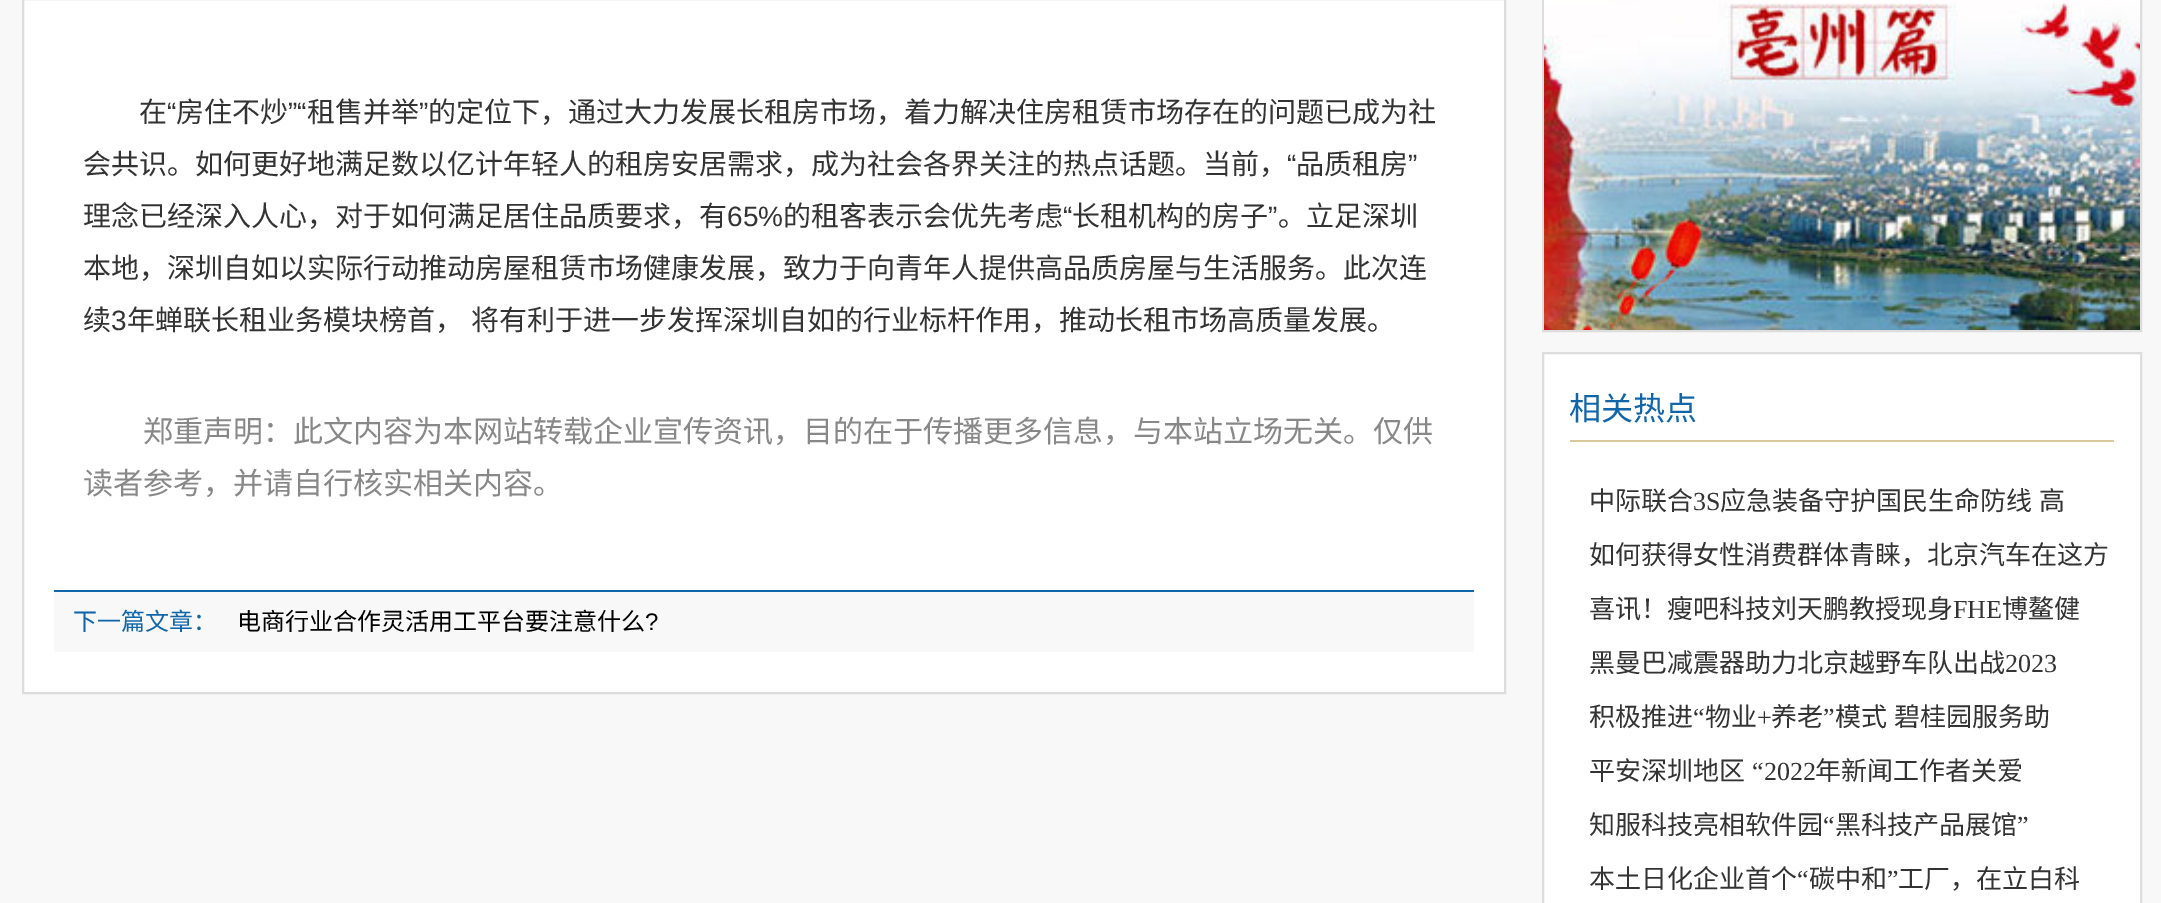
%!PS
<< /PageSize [2161 903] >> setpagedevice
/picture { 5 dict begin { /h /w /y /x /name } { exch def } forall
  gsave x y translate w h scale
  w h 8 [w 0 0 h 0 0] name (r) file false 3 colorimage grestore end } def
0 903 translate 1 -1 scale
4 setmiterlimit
0.973 setgray
0 0 2161 903 rectfill
1 setgray
newpath 23 -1 moveto 1505 -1 lineto 1505 693 lineto 23 693 lineto closepath gsave fill grestore
0.867 setgray
2 setlinewidth
stroke
/NotoSansCJKSC-Regular [28 0 0 -28 0 0] selectfont
0.2 setgray
139 122 moveto (在) show
/LiberationSans-Regular [28 0 0 -28 0 0] selectfont
167 122 moveto (“) show
/NotoSansCJKSC-Regular [28 0 0 -28 0 0] selectfont
176 122 moveto (房住不炒) show
/LiberationSans-Regular [28 0 0 -28 0 0] selectfont
288 122 moveto (”“) show
/NotoSansCJKSC-Regular [28 0 0 -28 0 0] selectfont
307 122 moveto (租售并举) show
/LiberationSans-Regular [28 0 0 -28 0 0] selectfont
419 122 moveto (”) show
/NotoSansCJKSC-Regular [28 0 0 -28 0 0] selectfont
428 122 moveto (的定位下，通过大力发展长租房市场，着力解决住房租赁市场存在的问题已成为社) show
83 174 moveto (会共识。如何更好地满足数以亿计年轻人的租房安居需求，成为社会各界关注的热点话题。当前，) show
/LiberationSans-Regular [28 0 0 -28 0 0] selectfont
1287 174 moveto (“) show
/NotoSansCJKSC-Regular [28 0 0 -28 0 0] selectfont
1296 174 moveto (品质租房) show
/LiberationSans-Regular [28 0 0 -28 0 0] selectfont
1408 174 moveto (”) show
/NotoSansCJKSC-Regular [28 0 0 -28 0 0] selectfont
83 226 moveto (理念已经深入人心，对于如何满足居住品质要求，有) show
/LiberationSans-Regular [28 0 0 -28 0 0] selectfont
727 226 moveto (65%) show
/NotoSansCJKSC-Regular [28 0 0 -28 0 0] selectfont
783 226 moveto (的租客表示会优先考虑) show
/LiberationSans-Regular [28 0 0 -28 0 0] selectfont
1063 226 moveto (“) show
/NotoSansCJKSC-Regular [28 0 0 -28 0 0] selectfont
1072 226 moveto (长租机构的房子) show
/LiberationSans-Regular [28 0 0 -28 0 0] selectfont
1268 226 moveto (”) show
/NotoSansCJKSC-Regular [28 0 0 -28 0 0] selectfont
1278 226 moveto (。立足深圳) show
83 278 moveto (本地，深圳自如以实际行动推动房屋租赁市场健康发展，致力于向青年人提供高品质房屋与生活服务。此次连) show
83 330 moveto (续) show
/LiberationSans-Regular [28 0 0 -28 0 0] selectfont
111 330 moveto (3) show
/NotoSansCJKSC-Regular [28 0 0 -28 0 0] selectfont
127 330 moveto 2 0 32 (年蝉联长租业务模块榜首， 将有利于进一步发挥深圳自如的行业标杆作用，推动长租市场高质量发展。) widthshow
/NotoSansCJKSC-Regular [30 0 0 -30 0 0] selectfont
0.533 setgray
143 442 moveto (郑重声明：此文内容为本网站转载企业宣传资讯，目的在于传播更多信息，与本站立场无关。仅供) show
83 494 moveto (读者参考，并请自行核实相关内容。) show
0.973 setgray
54 592 1420 60 rectfill
0.067 0.4 0.667 setrgbcolor
54 590 1420 2 rectfill
/NotoSansCJKSC-Regular [24 0 0 -24 0 0] selectfont
73 630 moveto (下一篇文章：) show
0 setgray
237 630 moveto (电商行业合作灵活用工平台要注意什么) show
/LiberationSans-Regular [24 0 0 -24 0 0] selectfont
645 630 moveto (?) show
0.867 setgray
1543 -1 598 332 rectstroke
(img1.rgb) 1544 0 596 330 picture
1 setgray
newpath 1543 353 moveto 2141 353 lineto 2141 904 lineto 1543 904 lineto closepath gsave fill grestore
0.867 setgray
stroke
0.847 0.784 0.604 setrgbcolor
1570 440 544 2 rectfill
/NotoSansCJKSC-Regular [32 0 0 -32 0 0] selectfont
0.067 0.4 0.667 setrgbcolor
1569 420 moveto (相关热点) show
/NotoSansCJKSC-Regular [26 0 0 -26 0 0] selectfont
0.2 setgray
1589 510 moveto (中际联合) show
/LiberationSerif-Regular [26 0 0 -26 0 0] selectfont
1693 510 moveto (3S) show
/NotoSansCJKSC-Regular [26 0 0 -26 0 0] selectfont
1720 510 moveto 1 0 32 (应急装备守护国民生命防线 高) widthshow
1589 564 moveto (如何获得女性消费群体青睐，北京汽车在这方) show
1589 618 moveto (喜讯！瘦吧科技刘天鹏教授现身) show
/LiberationSerif-Regular [26 0 0 -26 0 0] selectfont
1953 618 moveto (FHE) show
/NotoSansCJKSC-Regular [26 0 0 -26 0 0] selectfont
2002 618 moveto (博鳌健) show
1589 672 moveto (黑曼巴减震器助力北京越野车队出战) show
/LiberationSerif-Regular [26 0 0 -26 0 0] selectfont
2005 672 moveto (2023) show
/NotoSansCJKSC-Regular [26 0 0 -26 0 0] selectfont
1589 726 moveto (积极推进) show
/LiberationSerif-Regular [26 0 0 -26 0 0] selectfont
1693 726 moveto (“) show
/NotoSansCJKSC-Regular [26 0 0 -26 0 0] selectfont
1705 726 moveto (物业) show
/LiberationSerif-Regular [26 0 0 -26 0 0] selectfont
1757 726 moveto (+) show
/NotoSansCJKSC-Regular [26 0 0 -26 0 0] selectfont
1771 726 moveto (养老) show
/LiberationSerif-Regular [26 0 0 -26 0 0] selectfont
1823 726 moveto (”) show
/NotoSansCJKSC-Regular [26 0 0 -26 0 0] selectfont
1835 726 moveto 1 0 32 (模式 碧桂园服务助) widthshow
1589 780 moveto (平安深圳地区) show
/LiberationSerif-Regular [26 0 0 -26 0 0] selectfont
1752 780 moveto (“2022) show
/NotoSansCJKSC-Regular [26 0 0 -26 0 0] selectfont
1815 780 moveto (年新闻工作者关爱) show
1589 834 moveto (知服科技亮相软件园) show
/LiberationSerif-Regular [26 0 0 -26 0 0] selectfont
1823 834 moveto (“) show
/NotoSansCJKSC-Regular [26 0 0 -26 0 0] selectfont
1835 834 moveto (黑科技产品展馆) show
/LiberationSerif-Regular [26 0 0 -26 0 0] selectfont
2017 834 moveto (”) show
/NotoSansCJKSC-Regular [26 0 0 -26 0 0] selectfont
1589 888 moveto (本土日化企业首个) show
/LiberationSerif-Regular [26 0 0 -26 0 0] selectfont
1797 888 moveto (“) show
/NotoSansCJKSC-Regular [26 0 0 -26 0 0] selectfont
1809 888 moveto (碳中和) show
/LiberationSerif-Regular [26 0 0 -26 0 0] selectfont
1887 888 moveto (”) show
/NotoSansCJKSC-Regular [26 0 0 -26 0 0] selectfont
1898 888 moveto (工厂，在立白科) show
showpage
